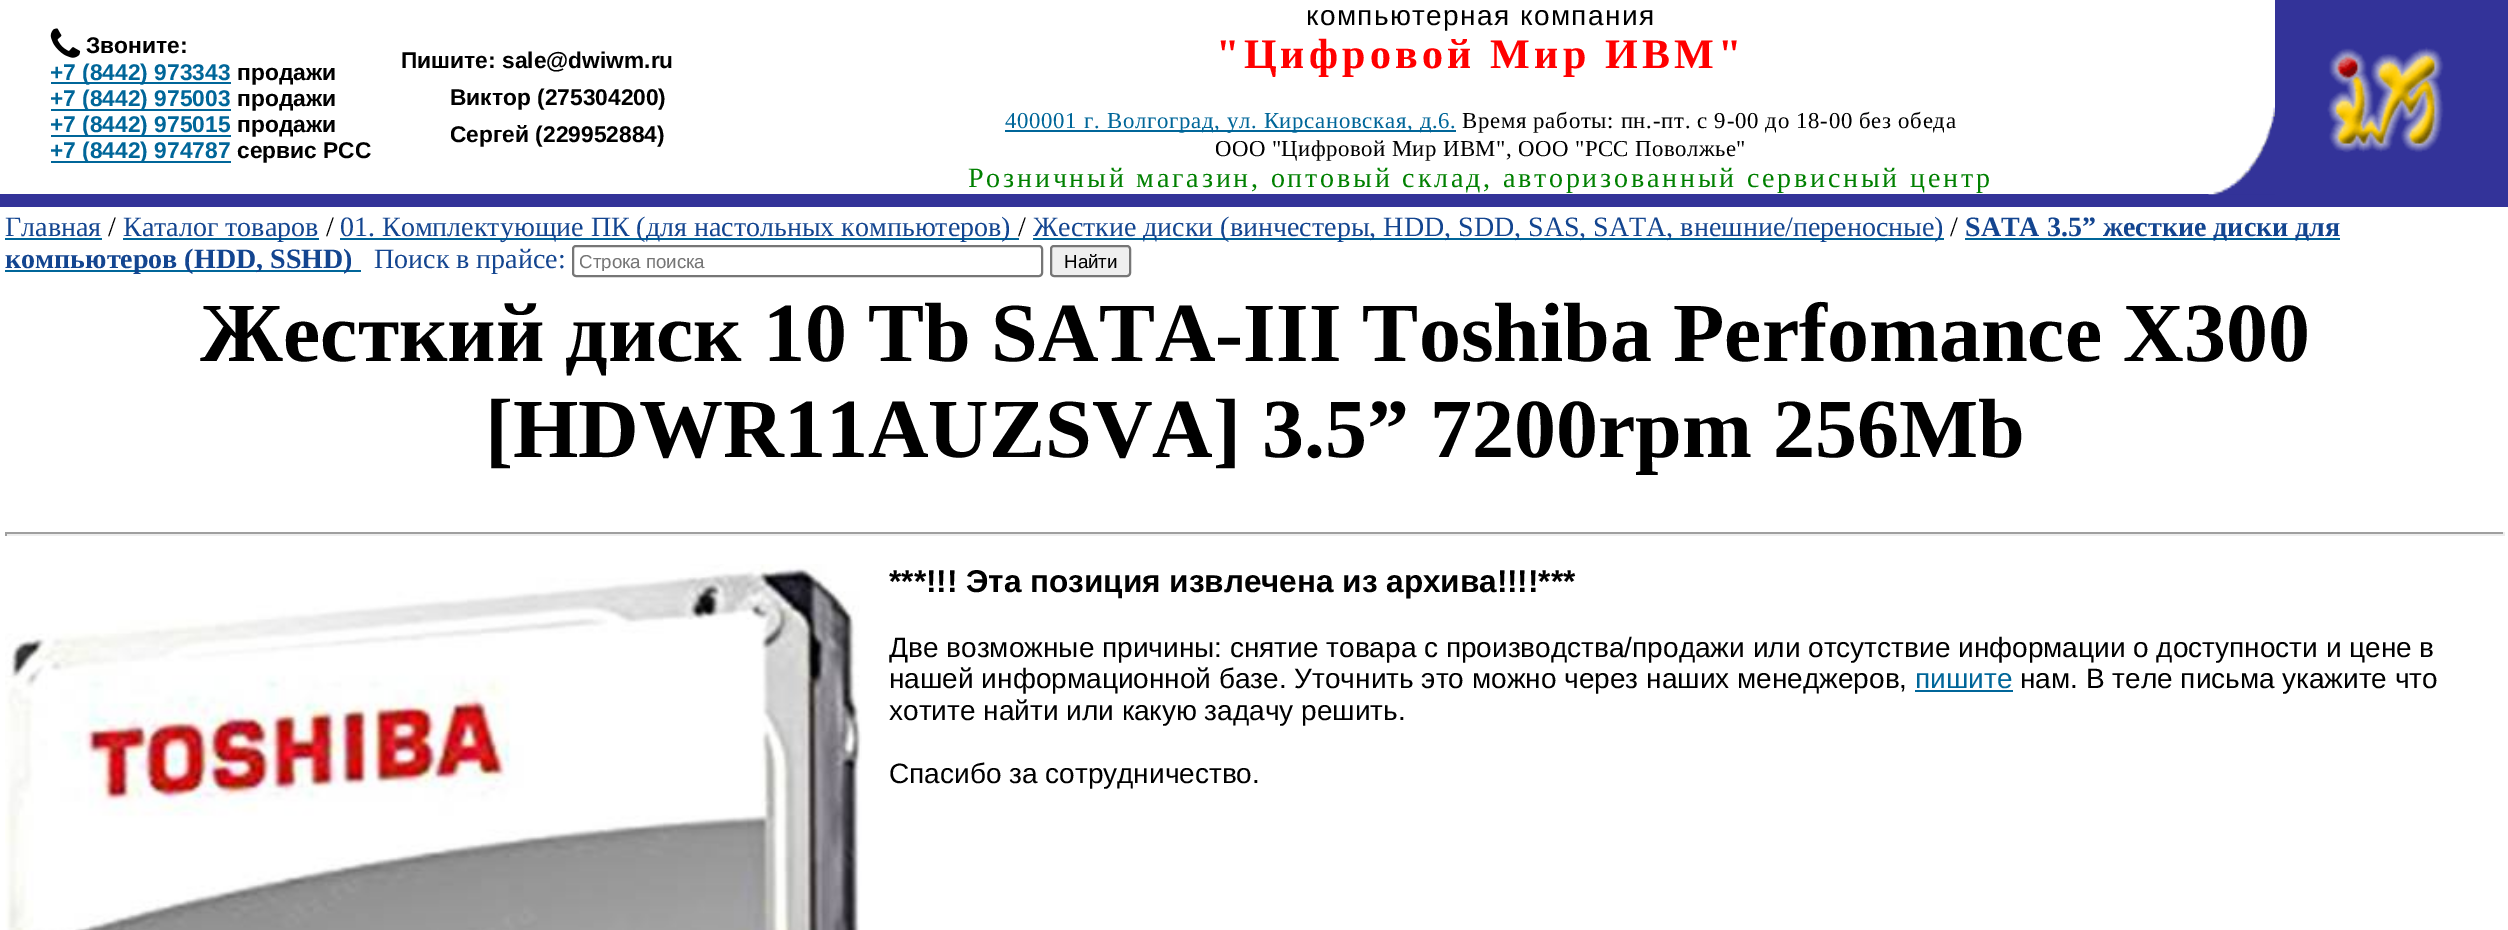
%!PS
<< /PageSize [2508 930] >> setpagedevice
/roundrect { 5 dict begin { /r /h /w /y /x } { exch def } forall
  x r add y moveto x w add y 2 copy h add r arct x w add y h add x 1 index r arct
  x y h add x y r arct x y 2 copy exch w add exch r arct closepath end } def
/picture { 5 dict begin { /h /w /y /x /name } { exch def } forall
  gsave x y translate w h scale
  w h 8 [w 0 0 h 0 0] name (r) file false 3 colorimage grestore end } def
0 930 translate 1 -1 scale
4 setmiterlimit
1 setgray
0 0 2508 930 rectfill
(img1.rgb) 50 28 31 30 picture
/LiberationSans-Bold [22.75 0 0 -22.75 0 0] selectfont
0 setgray
86 53 moveto (Звоните:) show
0 0.4 0.6 setrgbcolor
51 82 180 2 rectfill
50 80 moveto (+7 \(8442\) 973343) show
0 setgray
237 80 moveto (продажи) show
0 0.4 0.6 setrgbcolor
51 109 180 2 rectfill
50 106 moveto (+7 \(8442\) 975003) show
0 setgray
237 106 moveto (продажи) show
0 0.4 0.6 setrgbcolor
51 135 180 2 rectfill
50 132 moveto (+7 \(8442\) 975015) show
0 setgray
237 132 moveto (продажи) show
0 0.4 0.6 setrgbcolor
51 161 180 2 rectfill
50 158 moveto (+7 \(8442\) 974787) show
0 setgray
237 158 moveto (сервис РСС) show
401 68 moveto (Пишите: sale@dwiwm.ru) show
450 105 moveto (Виктор \(275304200\)) show
450 142 moveto (Сергей \(229952884\)) show
/LiberationSans-Regular [28 0 0 -28 0 0] selectfont
1306 25 moveto 1.4 0 (компьютерная компания) ashow
/LiberationSerif-Bold [42 0 0 -42 0 0] selectfont
1 0 0 setrgbcolor
1216 68 moveto 4.25 0 ("Цифровой Мир ИВМ") ashow
0 0.4 0.6 setrgbcolor
1005 130 451 2 rectfill
/LiberationSerif-Regular [22.75 0 0 -22.75 0 0] selectfont
1005 128 moveto 0.7 0 (400001 г. Волгоград, ул. Кирсановская, д.6.) ashow
0 setgray
1462 128 moveto 0.7 0 (Время работы: пн.-пт. с 9-00 до 18-00 без обеда) ashow
1215 156 moveto 0.45 0 (ООО "Цифровой Мир ИВМ", ООО "РСС Поволжье") ashow
/LiberationSerif-Regular [28 0 0 -28 0 0] selectfont
0 0.502 0 setrgbcolor
968 187 moveto 2.8 0 (Розничный магазин, оптовый склад, авторизованный сервисный центр) ashow
0.2 0.2 0.6 setrgbcolor
0 194 2275 13 rectfill
(img2.rgb) 2208 107 67 88 picture
2275 0 233 207 rectfill
(img3.rgb) 2327 47 117 106 picture
0.075 0.271 0.565 setrgbcolor
5 236 moveto (Главная) show
0 0.4 0.6 setrgbcolor
5 238 97 2 rectfill
0 setgray
108 236 moveto (/) show
0 0.4 0.6 setrgbcolor
123 238 196 2 rectfill
0.075 0.271 0.565 setrgbcolor
123 236 moveto (Каталог товаров) show
0 setgray
326 236 moveto (/) show
0 0.4 0.6 setrgbcolor
340 238 679 2 rectfill
0.075 0.271 0.565 setrgbcolor
340 236 moveto (01. Комплектующие ПК \(для настольных компьютеров\)) show
0 setgray
1018 236 moveto (/) show
0 0.4 0.6 setrgbcolor
1033 238 911 2 rectfill
0.075 0.271 0.565 setrgbcolor
1033 236 moveto (Жесткие диски \(винчестеры, HDD, SDD, SAS, SATA, внешние/переносные\)) show
0 setgray
1950 236 moveto (/) show
0 0.4 0.6 setrgbcolor
1965 238 375 2 rectfill
/LiberationSerif-Bold [28 0 0 -28 0 0] selectfont
0.075 0.271 0.565 setrgbcolor
1965 236 moveto (SATA 3.5” жесткие диски для) show
0 0.4 0.6 setrgbcolor
5 270 356 2 rectfill
0.075 0.271 0.565 setrgbcolor
5 268 moveto (компьютеров \(HDD, SSHD\)) show
/LiberationSerif-Regular [28 0 0 -28 0 0] selectfont
374 268 moveto (Поиск в прайсе:) show
0.463 setgray
2 setlinewidth
573 246 469 30 3 roundrect stroke
gsave
579 250 457 21 rectclip
/LiberationSans-Regular [18.75 0 0 -18.75 0 0] selectfont
0.459 setgray
579 268 moveto (Строка поиска) show
grestore
0.937 setgray
1051 246 79 30 3 roundrect gsave fill grestore
0.463 setgray
stroke
/LiberationSans-Regular [18.75 0 0 -18.75 0 0] selectfont
0 setgray
1064 268 moveto (Найти) show
/LiberationSerif-Bold [84 0 0 -84 0 0] selectfont
200 361 moveto (Жесткий диск 10 Tb SATA-III Toshiba Perfomance X300) show
485 457 moveto ([HDWR11AUZSVA] 3.5” 7200rpm 256Mb) show
0.624 setgray
5 532 2499 2 rectfill
0.933 setgray
2503 532 2 4 rectfill
5 534 2499 2 rectfill
0.624 setgray
5 532 2 4 rectfill
(img4.rgb) 5 564 857 366 picture
/LiberationSans-Bold [31.5 0 0 -31.5 0 0] selectfont
0 setgray
889 592 moveto (***!!! Эта позиция извлечена из архива!!!!***) show
/LiberationSans-Regular [28 0 0 -28 0 0] selectfont
889 657 moveto (Две возможные причины: снятие товара с производства/продажи или отсутствие информации о доступности и цене в) show
889 688 moveto (нашей информационной базе. Уточнить это можно через наших менеджеров,) show
0 0.4 0.6 setrgbcolor
1915 688 moveto (пишите) show
1915 690 98 2 rectfill
0 setgray
2020 688 moveto (нам. В теле письма укажите что) show
889 720 moveto (хотите найти или какую задачу решить.) show
889 783 moveto (Спасибо за сотрудничество.) show
showpage
